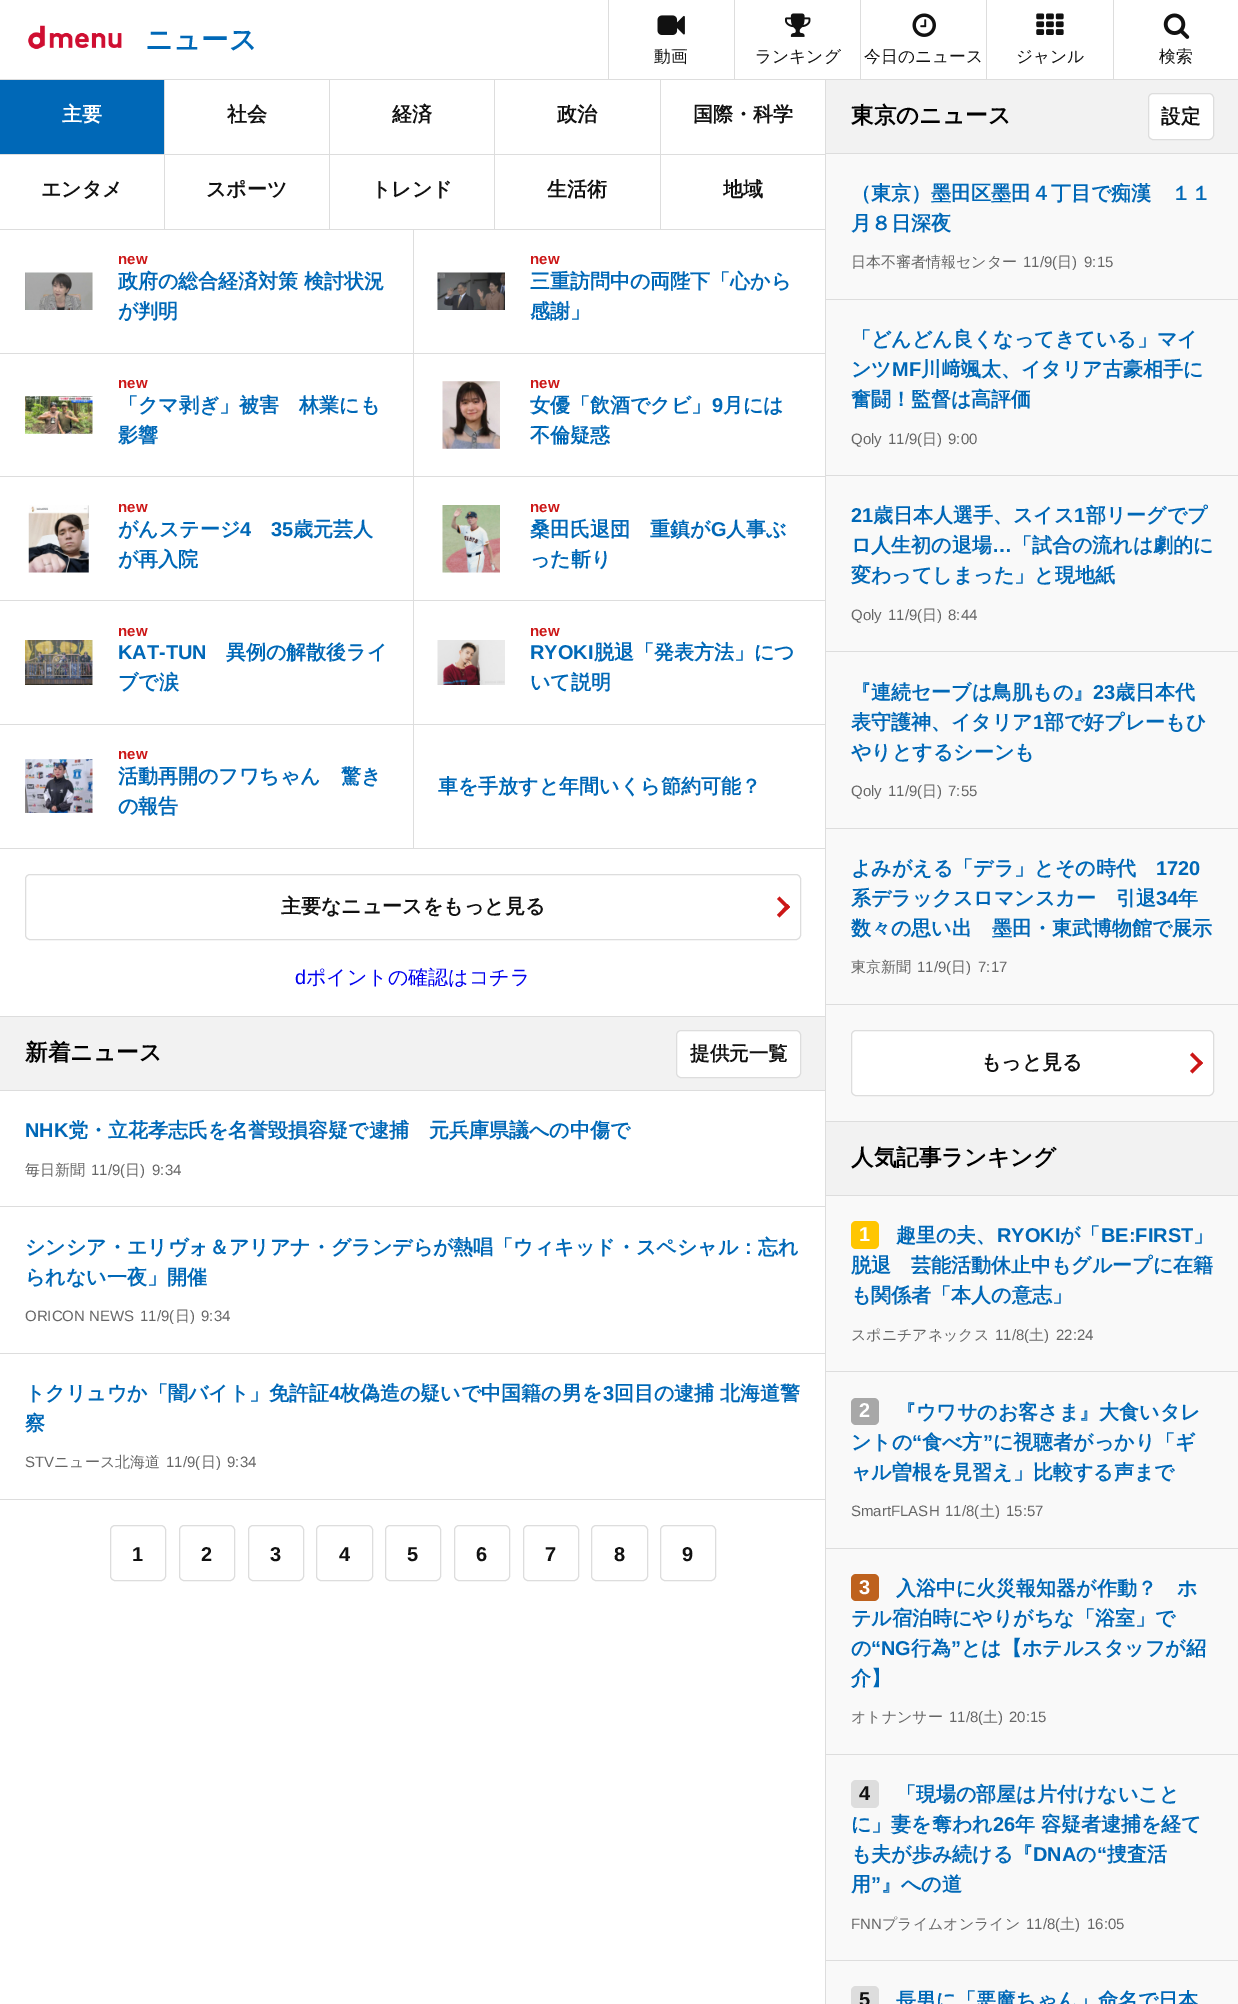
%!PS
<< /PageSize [1238 2004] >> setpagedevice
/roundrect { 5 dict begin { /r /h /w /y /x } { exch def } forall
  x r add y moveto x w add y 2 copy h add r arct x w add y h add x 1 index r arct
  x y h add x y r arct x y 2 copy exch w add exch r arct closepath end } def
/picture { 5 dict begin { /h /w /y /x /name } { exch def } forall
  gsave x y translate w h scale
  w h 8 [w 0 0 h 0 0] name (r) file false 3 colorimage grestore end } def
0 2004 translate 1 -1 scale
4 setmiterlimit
1 setgray
0 0 1238 2004 rectfill
0.867 setgray
0 79 986 1 rectfill
(img1.rgb) 28 25 94 24 picture
/WenQuanYiZenHei-Bold [27.5 0 0 -27.5 0 0] selectfont
0 0.408 0.718 setrgbcolor
145 49 moveto (ニュース) show
0.867 setgray
608 0 1 79 rectfill
(img2.rgb) 657 15 28 20 picture
/WenQuanYiZenHei-Medium [16.75 0 0 -16.75 0 0] selectfont
0.067 setgray
654 62 moveto (動画) show
0.867 setgray
734 0 1 79 rectfill
(img3.rgb) 785 13 26 24 picture
0.067 setgray
755 62 moveto (ランキング) show
0.867 setgray
860 0 1 79 rectfill
(img4.rgb) 912 13 24 24 picture
0.067 setgray
864 62 moveto (今日のニュース) show
0.867 setgray
986 0 1 79 rectfill
(img5.rgb) 1036 13 28 22 picture
0.067 setgray
1016 62 moveto (ジャンル) show
0.867 setgray
1113 0 1 79 rectfill
(img6.rgb) 1163 13 27 26 picture
0.067 setgray
1159 62 moveto (検索) show
0.867 setgray
986 79 252 1 rectfill
0 0.408 0.718 setrgbcolor
0 80 164 74 rectfill
0.867 setgray
164 80 1 150 rectfill
0 154 165 1 rectfill
/WenQuanYiZenHei-Bold [20 0 0 -20 0 0] selectfont
1 setgray
62 121 moveto (主要) show
0.867 setgray
329 80 1 150 rectfill
165 154 165 1 rectfill
0.067 setgray
227 121 moveto (社会) show
0.867 setgray
494 80 1 150 rectfill
330 154 165 1 rectfill
0.067 setgray
392 121 moveto (経済) show
0.867 setgray
660 80 1 150 rectfill
495 154 331 1 rectfill
0.067 setgray
557 121 moveto (政治) show
693 121 moveto (国際・科学) show
0.867 setgray
0 229 826 1 rectfill
0.067 setgray
41 196 moveto (エンタメ) show
206 196 moveto (スポーツ) show
371 196 moveto (トレンド) show
547 196 moveto (生活術) show
723 196 moveto (地域) show
0.867 setgray
0 353 826 1 rectfill
(img7.rgb) 25 272 68 38 picture
/LiberationSans-Bold [15 0 0 -15 0 0] selectfont
0.8 0.09 0.09 setrgbcolor
118 264 moveto (new) show
/WenQuanYiZenHei-Bold [20 0 0 -20 0 0] selectfont
0 0.408 0.718 setrgbcolor
118 288 moveto (政府の総合経済対策 検討状況) show
118 318 moveto (が判明) show
0.867 setgray
0 476 826 1 rectfill
0 600 826 1 rectfill
0 724 826 1 rectfill
413 230 1 619 rectfill
(img8.rgb) 437 272 68 38 picture
/LiberationSans-Bold [15 0 0 -15 0 0] selectfont
0.8 0.09 0.09 setrgbcolor
530 264 moveto (new) show
/WenQuanYiZenHei-Bold [20 0 0 -20 0 0] selectfont
0 0.408 0.718 setrgbcolor
530 288 moveto (三重訪問中の両陛下「心から) show
530 318 moveto (感謝」) show
(img9.rgb) 25 396 68 38 picture
/LiberationSans-Bold [15 0 0 -15 0 0] selectfont
0.8 0.09 0.09 setrgbcolor
118 388 moveto (new) show
/WenQuanYiZenHei-Bold [20 0 0 -20 0 0] selectfont
0 0.408 0.718 setrgbcolor
118 412 moveto (「クマ剥ぎ」被害　林業にも) show
118 442 moveto (影響) show
(img10.rgb) 442 381 58 68 picture
/LiberationSans-Bold [15 0 0 -15 0 0] selectfont
0.8 0.09 0.09 setrgbcolor
530 388 moveto (new) show
/WenQuanYiZenHei-Bold [20 0 0 -20 0 0] selectfont
0 0.408 0.718 setrgbcolor
530 412 moveto (女優「飲酒でクビ」) show
/LiberationSans-Bold [20 0 0 -20 0 0] selectfont
712 412 moveto (9) show
/WenQuanYiZenHei-Bold [20 0 0 -20 0 0] selectfont
723 412 moveto (月には) show
530 442 moveto (不倫疑惑) show
(img11.rgb) 28 505 61 68 picture
/LiberationSans-Bold [15 0 0 -15 0 0] selectfont
0.8 0.09 0.09 setrgbcolor
118 512 moveto (new) show
/WenQuanYiZenHei-Bold [20 0 0 -20 0 0] selectfont
0 0.408 0.718 setrgbcolor
118 536 moveto (がんステージ) show
/LiberationSans-Bold [20 0 0 -20 0 0] selectfont
240 536 moveto (4) show
271 536 moveto (35) show
/WenQuanYiZenHei-Bold [20 0 0 -20 0 0] selectfont
293 536 moveto (歳元芸人) show
118 566 moveto (が再入院) show
(img12.rgb) 442 505 58 68 picture
/LiberationSans-Bold [15 0 0 -15 0 0] selectfont
0.8 0.09 0.09 setrgbcolor
530 512 moveto (new) show
/WenQuanYiZenHei-Bold [20 0 0 -20 0 0] selectfont
0 0.408 0.718 setrgbcolor
530 536 moveto (桑田氏退団　重鎮が) show
/LiberationSans-Bold [20 0 0 -20 0 0] selectfont
711 536 moveto (G) show
/WenQuanYiZenHei-Bold [20 0 0 -20 0 0] selectfont
726 536 moveto (人事ぶ) show
530 566 moveto (った斬り) show
(img13.rgb) 25 640 68 45 picture
/LiberationSans-Bold [15 0 0 -15 0 0] selectfont
0.8 0.09 0.09 setrgbcolor
118 636 moveto (new) show
/LiberationSans-Bold [20 0 0 -20 0 0] selectfont
0 0.408 0.718 setrgbcolor
118 659 moveto (KAT-TUN) show
/WenQuanYiZenHei-Bold [20 0 0 -20 0 0] selectfont
226 659 moveto (異例の解散後ライ) show
118 689 moveto (ブで涙) show
(img14.rgb) 437 640 68 45 picture
/LiberationSans-Bold [15 0 0 -15 0 0] selectfont
0.8 0.09 0.09 setrgbcolor
530 636 moveto (new) show
/LiberationSans-Bold [20 0 0 -20 0 0] selectfont
0 0.408 0.718 setrgbcolor
530 659 moveto (RYOKI) show
/WenQuanYiZenHei-Bold [20 0 0 -20 0 0] selectfont
594 659 moveto (脱退「発表方法」につ) show
530 689 moveto (いて説明) show
(img15.rgb) 25 759 68 54 picture
/LiberationSans-Bold [15 0 0 -15 0 0] selectfont
0.8 0.09 0.09 setrgbcolor
118 759 moveto (new) show
/WenQuanYiZenHei-Bold [20 0 0 -20 0 0] selectfont
0 0.408 0.718 setrgbcolor
118 783 moveto (活動再開のフワちゃん　驚き) show
118 813 moveto (の報告) show
438 793 moveto (車を手放すと年間いくら節約可能？) show
0.867 setgray
0 848 826 1 rectfill
25.5 874.5 775 65 4.5 roundrect stroke
0.067 setgray
281 913 moveto (主要なニュースをもっと見る) show
0.8 0.09 0.09 setrgbcolor
newpath 779.5 896.5 moveto 790 907 lineto 787.5 909.5 lineto 777 899 lineto closepath fill
newpath 787.5 904 moveto 790 907 lineto 779.5 917.5 lineto 777 915 lineto closepath fill
/LiberationSans-Regular [20 0 0 -20 0 0] selectfont
0 0 0.933 setrgbcolor
295 984 moveto (d) show
/WenQuanYiZenHei-Medium [20 0 0 -20 0 0] selectfont
306 984 moveto (ポイントの確認はコチラ) show
0.949 setgray
0 1017 825 73 rectfill
0.867 setgray
0 1016 826 1 rectfill
0 1090 826 1 rectfill
/WenQuanYiZenHei-Bold [22.5 0 0 -22.5 0 0] selectfont
0 setgray
25 1060 moveto (新着ニュース) show
1 setgray
676.5 1030.5 124 47 4.5 roundrect gsave fill grestore
0.867 setgray
stroke
/WenQuanYiZenHei-Bold [19.5 0 0 -19.5 0 0] selectfont
0.067 setgray
690 1060 moveto (提供元一覧) show
0.867 setgray
0 1206 826 1 rectfill
/LiberationSans-Bold [20 0 0 -20 0 0] selectfont
0 0.408 0.718 setrgbcolor
25 1137 moveto (NHK) show
/WenQuanYiZenHei-Bold [20 0 0 -20 0 0] selectfont
68 1137 moveto (党・立花孝志氏を名誉毀損容疑で逮捕　元兵庫県議への中傷で) show
/WenQuanYiZenHei-Medium [15 0 0 -15 0 0] selectfont
0.4 setgray
25 1175 moveto (毎日新聞) show
/LiberationSans-Regular [15 0 0 -15 0 0] selectfont
91 1175 moveto (11/9\() show
/WenQuanYiZenHei-Medium [15 0 0 -15 0 0] selectfont
125 1175 moveto (日) show
/LiberationSans-Regular [15 0 0 -15 0 0] selectfont
140 1175 moveto (\)) show
152 1175 moveto (9:34) show
0.867 setgray
0 1353 826 1 rectfill
/WenQuanYiZenHei-Bold [20 0 0 -20 0 0] selectfont
0 0.408 0.718 setrgbcolor
25 1254 moveto (シンシア・エリヴォ＆アリアナ・グランデらが熱唱「ウィキッド・スペシャル：忘れ) show
25 1284 moveto (られない一夜」開催) show
/LiberationSans-Regular [15 0 0 -15 0 0] selectfont
0.4 setgray
25 1321 moveto (ORICON NEWS) show
140 1321 moveto (11/9\() show
/WenQuanYiZenHei-Medium [15 0 0 -15 0 0] selectfont
175 1321 moveto (日) show
/LiberationSans-Regular [15 0 0 -15 0 0] selectfont
190 1321 moveto (\)) show
201 1321 moveto (9:34) show
0.867 setgray
0 1499 826 1 rectfill
/WenQuanYiZenHei-Bold [20 0 0 -20 0 0] selectfont
0 0.408 0.718 setrgbcolor
25 1400 moveto (トクリュウか「闇バイト」免許証) show
/LiberationSans-Bold [20 0 0 -20 0 0] selectfont
329 1400 moveto (4) show
/WenQuanYiZenHei-Bold [20 0 0 -20 0 0] selectfont
340 1400 moveto (枚偽造の疑いで中国籍の男を) show
/LiberationSans-Bold [20 0 0 -20 0 0] selectfont
603 1400 moveto (3) show
/WenQuanYiZenHei-Bold [20 0 0 -20 0 0] selectfont
614 1400 moveto (回目の逮捕 北海道警) show
25 1430 moveto (察) show
/LiberationSans-Regular [15 0 0 -15 0 0] selectfont
0.4 setgray
25 1467 moveto (STV) show
/WenQuanYiZenHei-Medium [15 0 0 -15 0 0] selectfont
54 1467 moveto (ニュース北海道) show
/LiberationSans-Regular [15 0 0 -15 0 0] selectfont
166 1467 moveto (11/9\() show
/WenQuanYiZenHei-Medium [15 0 0 -15 0 0] selectfont
201 1467 moveto (日) show
/LiberationSans-Regular [15 0 0 -15 0 0] selectfont
216 1467 moveto (\)) show
227 1467 moveto (9:34) show
0.867 setgray
110.5 1525.5 55 55 4.5 roundrect stroke
/LiberationSans-Bold [20 0 0 -20 0 0] selectfont
0.067 setgray
132 1561 moveto (1) show
0.867 setgray
179.5 1525.5 55 55 4.5 roundrect stroke
0.067 setgray
201 1561 moveto (2) show
0.867 setgray
248.5 1525.5 55 55 4.5 roundrect stroke
0.067 setgray
270 1561 moveto (3) show
0.867 setgray
316.5 1525.5 56 55 4.5 roundrect stroke
0.067 setgray
339 1561 moveto (4) show
0.867 setgray
385.5 1525.5 55 55 4.5 roundrect stroke
0.067 setgray
407 1561 moveto (5) show
0.867 setgray
454.5 1525.5 55 55 4.5 roundrect stroke
0.067 setgray
476 1561 moveto (6) show
0.867 setgray
523.5 1525.5 55 55 4.5 roundrect stroke
0.067 setgray
545 1561 moveto (7) show
0.867 setgray
591.5 1525.5 56 55 4.5 roundrect stroke
0.067 setgray
614 1561 moveto (8) show
0.867 setgray
660.5 1525.5 55 55 4.5 roundrect stroke
0.067 setgray
682 1561 moveto (9) show
0.867 setgray
825 80 1 1924 rectfill
0.949 setgray
826 80 412 73 rectfill
0.867 setgray
826 153 412 1 rectfill
/WenQuanYiZenHei-Bold [22.5 0 0 -22.5 0 0] selectfont
0 setgray
851 123 moveto (東京のニュース) show
1 setgray
1148.5 93.5 65 46 4.5 roundrect gsave fill grestore
0.867 setgray
stroke
/WenQuanYiZenHei-Bold [19.5 0 0 -19.5 0 0] selectfont
0.067 setgray
1161 123 moveto (設定) show
0.976 setgray
826 154 412 1850 rectfill
0.867 setgray
826 299 412 1 rectfill
/WenQuanYiZenHei-Bold [20 0 0 -20 0 0] selectfont
0 0.408 0.718 setrgbcolor
851 200 moveto (（東京）墨田区墨田４丁目で痴漢　１１) show
851 230 moveto (月８日深夜) show
/WenQuanYiZenHei-Medium [15 0 0 -15 0 0] selectfont
0.4 setgray
851 267 moveto (日本不審者情報センター) show
/LiberationSans-Regular [15 0 0 -15 0 0] selectfont
1023 267 moveto (11/9\() show
/WenQuanYiZenHei-Medium [15 0 0 -15 0 0] selectfont
1057 267 moveto (日) show
/LiberationSans-Regular [15 0 0 -15 0 0] selectfont
1072 267 moveto (\)) show
1084 267 moveto (9:15) show
0.867 setgray
826 475 412 1 rectfill
/WenQuanYiZenHei-Bold [20 0 0 -20 0 0] selectfont
0 0.408 0.718 setrgbcolor
851 346 moveto (「どんどん良くなってきている」マイ) show
851 376 moveto (ンツ) show
/LiberationSans-Bold [20 0 0 -20 0 0] selectfont
892 376 moveto (MF) show
/WenQuanYiZenHei-Bold [20 0 0 -20 0 0] selectfont
921 376 moveto (川) show
/IPAPGothic-Bold [20 0 0 -20 0 0] selectfont
941 376 moveto (﨑) show
/WenQuanYiZenHei-Bold [20 0 0 -20 0 0] selectfont
961 376 moveto (颯太、イタリア古豪相手に) show
851 406 moveto (奮闘！監督は高評価) show
/LiberationSans-Regular [15 0 0 -15 0 0] selectfont
0.4 setgray
851 444 moveto (Qoly) show
888 444 moveto (11/9\() show
/WenQuanYiZenHei-Medium [15 0 0 -15 0 0] selectfont
922 444 moveto (日) show
/LiberationSans-Regular [15 0 0 -15 0 0] selectfont
937 444 moveto (\)) show
948 444 moveto (9:00) show
0.867 setgray
826 651 412 1 rectfill
/LiberationSans-Bold [20 0 0 -20 0 0] selectfont
0 0.408 0.718 setrgbcolor
851 522 moveto (21) show
/WenQuanYiZenHei-Bold [20 0 0 -20 0 0] selectfont
873 522 moveto (歳日本人選手、スイス) show
/LiberationSans-Bold [20 0 0 -20 0 0] selectfont
1074 522 moveto (1) show
/WenQuanYiZenHei-Bold [20 0 0 -20 0 0] selectfont
1086 522 moveto (部リーグでプ) show
851 552 moveto (ロ人生初の退場) show
/LiberationSans-Bold [20 0 0 -20 0 0] selectfont
992 552 moveto (…) show
/WenQuanYiZenHei-Bold [20 0 0 -20 0 0] selectfont
1012 552 moveto (「試合の流れは劇的に) show
851 582 moveto (変わってしまった」と現地紙) show
/LiberationSans-Regular [15 0 0 -15 0 0] selectfont
0.4 setgray
851 620 moveto (Qoly) show
888 620 moveto (11/9\() show
/WenQuanYiZenHei-Medium [15 0 0 -15 0 0] selectfont
922 620 moveto (日) show
/LiberationSans-Regular [15 0 0 -15 0 0] selectfont
937 620 moveto (\)) show
948 620 moveto (8:44) show
0.867 setgray
826 828 412 1 rectfill
/WenQuanYiZenHei-Bold [20 0 0 -20 0 0] selectfont
0 0.408 0.718 setrgbcolor
851 699 moveto (『連続セーブは鳥肌もの』) show
/LiberationSans-Bold [20 0 0 -20 0 0] selectfont
1093 699 moveto (23) show
/WenQuanYiZenHei-Bold [20 0 0 -20 0 0] selectfont
1115 699 moveto (歳日本代) show
851 729 moveto (表守護神、イタリア) show
/LiberationSans-Bold [20 0 0 -20 0 0] selectfont
1033 729 moveto (1) show
/WenQuanYiZenHei-Bold [20 0 0 -20 0 0] selectfont
1044 729 moveto (部で好プレーもひ) show
851 759 moveto (やりとするシーンも) show
/LiberationSans-Regular [15 0 0 -15 0 0] selectfont
0.4 setgray
851 796 moveto (Qoly) show
888 796 moveto (11/9\() show
/WenQuanYiZenHei-Medium [15 0 0 -15 0 0] selectfont
922 796 moveto (日) show
/LiberationSans-Regular [15 0 0 -15 0 0] selectfont
937 796 moveto (\)) show
948 796 moveto (7:55) show
0.867 setgray
826 1004 412 1 rectfill
/WenQuanYiZenHei-Bold [20 0 0 -20 0 0] selectfont
0 0.408 0.718 setrgbcolor
851 875 moveto (よみがえる「デラ」とその時代) show
/LiberationSans-Bold [20 0 0 -20 0 0] selectfont
1156 875 moveto (1720) show
/WenQuanYiZenHei-Bold [20 0 0 -20 0 0] selectfont
851 905 moveto (系デラックスロマンスカー　引退) show
/LiberationSans-Bold [20 0 0 -20 0 0] selectfont
1156 905 moveto (34) show
/WenQuanYiZenHei-Bold [20 0 0 -20 0 0] selectfont
1178 905 moveto (年) show
851 935 moveto (数々の思い出　墨田・東武博物館で展示) show
/WenQuanYiZenHei-Medium [15 0 0 -15 0 0] selectfont
0.4 setgray
851 972 moveto (東京新聞) show
/LiberationSans-Regular [15 0 0 -15 0 0] selectfont
917 972 moveto (11/9\() show
/WenQuanYiZenHei-Medium [15 0 0 -15 0 0] selectfont
951 972 moveto (日) show
/LiberationSans-Regular [15 0 0 -15 0 0] selectfont
966 972 moveto (\)) show
978 972 moveto (7:17) show
1 setgray
851.5 1030.5 362 65 4.5 roundrect gsave fill grestore
0.867 setgray
stroke
/WenQuanYiZenHei-Bold [20 0 0 -20 0 0] selectfont
0.067 setgray
981 1069 moveto (もっと見る) show
0.8 0.09 0.09 setrgbcolor
newpath 1192.5 1052.5 moveto 1203 1063 lineto 1200.5 1065.5 lineto 1190 1055 lineto closepath fill
newpath 1200.5 1060.5 moveto 1203 1063 lineto 1192.5 1073.5 lineto 1190 1071 lineto closepath fill
0.949 setgray
826 1122 412 73 rectfill
0.867 setgray
826 1121 412 1 rectfill
826 1195 412 1 rectfill
/WenQuanYiZenHei-Bold [22.5 0 0 -22.5 0 0] selectfont
0 setgray
851 1165 moveto (人気記事ランキング) show
0.867 setgray
826 1371 412 1 rectfill
1 0.776 0 setrgbcolor
851 1221 28 28 5 roundrect fill
/LiberationSans-Bold [20 0 0 -20 0 0] selectfont
1 setgray
859 1241 moveto (1) show
/WenQuanYiZenHei-Bold [20 0 0 -20 0 0] selectfont
0 0.408 0.718 setrgbcolor
896 1242 moveto (趣里の夫、) show
/LiberationSans-Bold [20 0 0 -20 0 0] selectfont
997 1242 moveto (RYOKI) show
/WenQuanYiZenHei-Bold [20 0 0 -20 0 0] selectfont
1060 1242 moveto (が「) show
/LiberationSans-Bold [20 0 0 -20 0 0] selectfont
1101 1242 moveto (BE:FIRST) show
/WenQuanYiZenHei-Bold [20 0 0 -20 0 0] selectfont
1193 1242 moveto (」) show
851 1272 moveto (脱退　芸能活動休止中もグループに在籍) show
851 1302 moveto (も関係者「本人の意志」) show
/WenQuanYiZenHei-Medium [15 0 0 -15 0 0] selectfont
0.4 setgray
851 1340 moveto (スポニチアネックス) show
/LiberationSans-Regular [15 0 0 -15 0 0] selectfont
995 1340 moveto (11/8\() show
/WenQuanYiZenHei-Medium [15 0 0 -15 0 0] selectfont
1029 1340 moveto (土) show
/LiberationSans-Regular [15 0 0 -15 0 0] selectfont
1044 1340 moveto (\)) show
1056 1340 moveto (22:24) show
0.867 setgray
826 1548 412 1 rectfill
0.659 setgray
851 1398 28 27 5 roundrect fill
/LiberationSans-Bold [20 0 0 -20 0 0] selectfont
1 setgray
859 1417 moveto (2) show
/WenQuanYiZenHei-Bold [20 0 0 -20 0 0] selectfont
0 0.408 0.718 setrgbcolor
896 1419 moveto (『ウワサのお客さま』大食いタレ) show
851 1449 moveto (ントの) show
/LiberationSans-Bold [20 0 0 -20 0 0] selectfont
912 1449 moveto (“) show
/WenQuanYiZenHei-Bold [20 0 0 -20 0 0] selectfont
922 1449 moveto (食べ方) show
/LiberationSans-Bold [20 0 0 -20 0 0] selectfont
983 1449 moveto (”) show
/WenQuanYiZenHei-Bold [20 0 0 -20 0 0] selectfont
993 1449 moveto (に視聴者がっかり「ギ) show
851 1479 moveto (ャル曽根を見習え」比較する声まで) show
/LiberationSans-Regular [15 0 0 -15 0 0] selectfont
0.4 setgray
851 1516 moveto (SmartFLASH) show
945 1516 moveto (11/8\() show
/WenQuanYiZenHei-Medium [15 0 0 -15 0 0] selectfont
980 1516 moveto (土) show
/LiberationSans-Regular [15 0 0 -15 0 0] selectfont
995 1516 moveto (\)) show
1006 1516 moveto (15:57) show
0.867 setgray
826 1754 412 1 rectfill
0.745 0.384 0.118 setrgbcolor
851 1574 28 27 5 roundrect fill
/LiberationSans-Bold [20 0 0 -20 0 0] selectfont
1 setgray
859 1594 moveto (3) show
/WenQuanYiZenHei-Bold [20 0 0 -20 0 0] selectfont
0 0.408 0.718 setrgbcolor
896 1595 moveto (入浴中に火災報知器が作動？　ホ) show
851 1625 moveto (テル宿泊時にやりがちな「浴室」で) show
851 1655 moveto (の) show
/LiberationSans-Bold [20 0 0 -20 0 0] selectfont
871 1655 moveto (“NG) show
/WenQuanYiZenHei-Bold [20 0 0 -20 0 0] selectfont
911 1655 moveto (行為) show
/LiberationSans-Bold [20 0 0 -20 0 0] selectfont
951 1655 moveto (”) show
/WenQuanYiZenHei-Bold [20 0 0 -20 0 0] selectfont
961 1655 moveto (とは【ホテルスタッフが紹) show
851 1685 moveto (介】) show
/WenQuanYiZenHei-Medium [15 0 0 -15 0 0] selectfont
0.4 setgray
851 1722 moveto (オトナンサー) show
/LiberationSans-Regular [15 0 0 -15 0 0] selectfont
949 1722 moveto (11/8\() show
/WenQuanYiZenHei-Medium [15 0 0 -15 0 0] selectfont
983 1722 moveto (土) show
/LiberationSans-Regular [15 0 0 -15 0 0] selectfont
998 1722 moveto (\)) show
1009 1722 moveto (20:15) show
0.867 setgray
826 1960 412 1 rectfill
851 1780 28 28 5 roundrect fill
/LiberationSans-Bold [20 0 0 -20 0 0] selectfont
0.067 setgray
859 1800 moveto (4) show
/WenQuanYiZenHei-Bold [20 0 0 -20 0 0] selectfont
0 0.408 0.718 setrgbcolor
896 1801 moveto (「現場の部屋は片付けないこと) show
851 1831 moveto (に」妻を奪われ) show
/LiberationSans-Bold [20 0 0 -20 0 0] selectfont
993 1831 moveto (26) show
/WenQuanYiZenHei-Bold [20 0 0 -20 0 0] selectfont
1015 1831 moveto (年 容疑者逮捕を経て) show
851 1861 moveto (も夫が歩み続ける『) show
/LiberationSans-Bold [20 0 0 -20 0 0] selectfont
1033 1861 moveto (DNA) show
/WenQuanYiZenHei-Bold [20 0 0 -20 0 0] selectfont
1076 1861 moveto (の) show
/LiberationSans-Bold [20 0 0 -20 0 0] selectfont
1097 1861 moveto (“) show
/WenQuanYiZenHei-Bold [20 0 0 -20 0 0] selectfont
1107 1861 moveto (捜査活) show
851 1891 moveto (用) show
/LiberationSans-Bold [20 0 0 -20 0 0] selectfont
871 1891 moveto (”) show
/WenQuanYiZenHei-Bold [20 0 0 -20 0 0] selectfont
881 1891 moveto (』への道) show
/LiberationSans-Regular [15 0 0 -15 0 0] selectfont
0.4 setgray
851 1929 moveto (FNN) show
/WenQuanYiZenHei-Medium [15 0 0 -15 0 0] selectfont
882 1929 moveto (プライムオンライン) show
/LiberationSans-Regular [15 0 0 -15 0 0] selectfont
1026 1929 moveto (11/8\() show
/WenQuanYiZenHei-Medium [15 0 0 -15 0 0] selectfont
1060 1929 moveto (土) show
/LiberationSans-Regular [15 0 0 -15 0 0] selectfont
1075 1929 moveto (\)) show
1087 1929 moveto (16:05) show
0.867 setgray
851 1986 28 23 5 roundrect fill
/LiberationSans-Bold [20 0 0 -20 0 0] selectfont
0.067 setgray
859 2006 moveto (5) show
/WenQuanYiZenHei-Bold [20 0 0 -20 0 0] selectfont
0 0.408 0.718 setrgbcolor
896 2007 moveto (長男に「悪魔ちゃん」命名で日本) show
showpage
